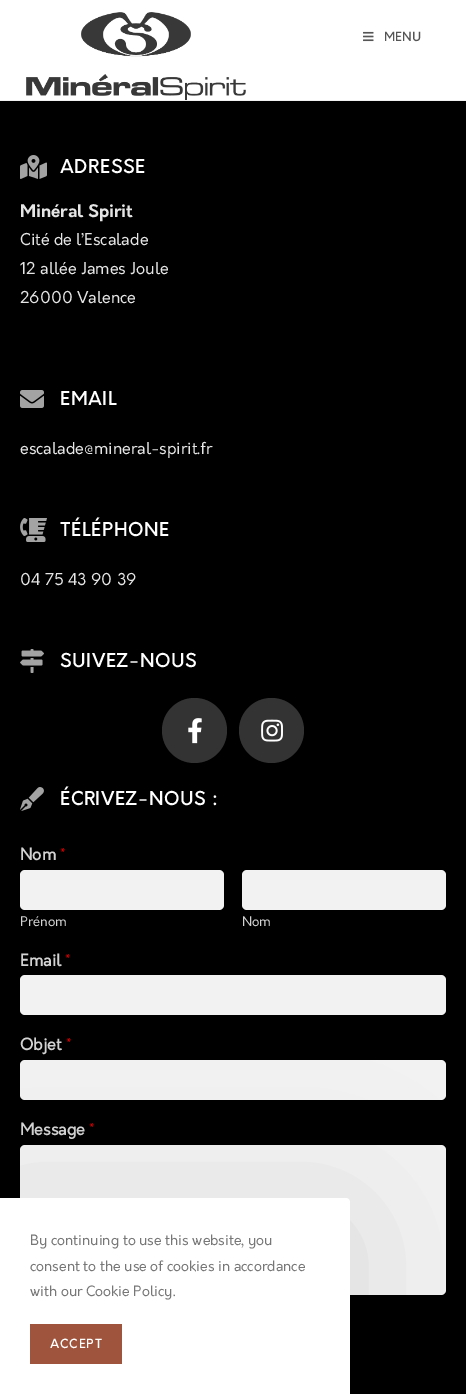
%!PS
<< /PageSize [466 1394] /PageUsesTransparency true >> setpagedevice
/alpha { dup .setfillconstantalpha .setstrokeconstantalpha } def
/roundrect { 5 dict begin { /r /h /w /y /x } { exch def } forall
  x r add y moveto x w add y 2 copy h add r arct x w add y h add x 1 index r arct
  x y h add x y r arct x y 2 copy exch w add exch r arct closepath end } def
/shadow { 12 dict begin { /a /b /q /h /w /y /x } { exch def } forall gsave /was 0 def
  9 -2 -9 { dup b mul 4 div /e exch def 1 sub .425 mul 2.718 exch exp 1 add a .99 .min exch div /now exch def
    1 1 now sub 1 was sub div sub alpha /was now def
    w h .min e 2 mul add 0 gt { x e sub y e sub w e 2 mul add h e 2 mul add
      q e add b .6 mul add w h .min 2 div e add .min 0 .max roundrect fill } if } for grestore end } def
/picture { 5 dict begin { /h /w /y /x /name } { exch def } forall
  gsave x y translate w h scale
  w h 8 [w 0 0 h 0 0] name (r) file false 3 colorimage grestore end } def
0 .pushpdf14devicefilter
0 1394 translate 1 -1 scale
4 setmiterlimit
1 setgray
0 0 466 1394 rectfill
0.945 setgray
0 100 466 1 rectfill
(img1.rgb) 26 12 220 88 picture
(img2.rgb) 363 31 11 11 picture
/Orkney-Bold [12 0 0 -12 0 0] selectfont
0.333 setgray
384 41 moveto 0.5 0 (MENU) ashow
0 setgray
0 101 466 1293 rectfill
(img3.rgb) 20 155 27 24 picture
/Orkney-Bold [18 0 0 -18 0 0] selectfont
1 setgray
60 173 moveto 1 0 (ADRESSE) ashow
/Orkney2-Bold [17 0 0 -17 0 0] selectfont
0.898 setgray
20 217 moveto (Minéral Spirit) show
/Orkney-Regular [16 0 0 -16 0 0] selectfont
20 245 moveto (Cité de l’Escalade) show
20 274 moveto (12 allée James Joule) show
20 303 moveto (26000 Valence) show
(img4.rgb) 20 390 24 18 picture
/Orkney-Bold [18 0 0 -18 0 0] selectfont
1 setgray
60 405 moveto 1 0 (EMAIL) ashow
/Orkney-Regular [16 0 0 -16 0 0] selectfont
0.898 setgray
20 454 moveto (escalade@mineral-spirit.fr) show
(img5.rgb) 20 518 27 24 picture
/Orkney-Bold [18 0 0 -18 0 0] selectfont
1 setgray
60 536 moveto 1 0 (TÉLÉPHONE) ashow
/Orkney-Regular [16 0 0 -16 0 0] selectfont
0.898 setgray
20 585 moveto (04 75 43 90 39) show
(img6.rgb) 20 649 24 24 picture
/Orkney-Bold [18 0 0 -18 0 0] selectfont
1 setgray
60 667 moveto 1 0 (SUIVEZ-NOUS) ashow
0.2 setgray
newpath 194.5 730.5 32.5 0 360 arc closepath fill
(img7.rgb) 188 718 14 26 picture
newpath 271.5 730.5 32.5 0 360 arc closepath fill
(img8.rgb) 261 719 22 23 picture
(img9.rgb) 20 787 24 24 picture
1 setgray
60 805 moveto 1 0 (ÉCRIVEZ-NOUS :) ashow
/Orkney-Bold [16 0 0 -16 0 0] selectfont
0.827 setgray
20 860 moveto (Nom) show
/Orkney-Regular [16 0 0 -16 0 0] selectfont
1 0 0 setrgbcolor
60 860 moveto (*) show
0.949 setgray
20 870 204 40 5 roundrect fill
/Orkney-Regular [13 0 0 -13 0 0] selectfont
0.827 setgray
20 926 moveto (Prénom) show
0.949 setgray
242 870 204 40 5 roundrect fill
0.827 setgray
242 926 moveto (Nom) show
/Orkney-Bold [16 0 0 -16 0 0] selectfont
20 966 moveto (Email) show
/Orkney-Regular [16 0 0 -16 0 0] selectfont
1 0 0 setrgbcolor
65 966 moveto (*) show
0.949 setgray
20 975 426 40 5 roundrect fill
/Orkney-Bold [16 0 0 -16 0 0] selectfont
0.827 setgray
20 1050 moveto (Objet) show
/Orkney-Regular [16 0 0 -16 0 0] selectfont
1 0 0 setrgbcolor
66 1050 moveto (*) show
0.949 setgray
20 1060 426 40 5 roundrect fill
/Orkney-Bold [16 0 0 -16 0 0] selectfont
0.827 setgray
20 1135 moveto (Message) show
/Orkney-Regular [16 0 0 -16 0 0] selectfont
1 0 0 setrgbcolor
89 1135 moveto (*) show
0.949 setgray
20 1145 426 150 5 roundrect fill
0 setgray
0 1218 350 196 4 75 0.1 shadow
1 setgray
newpath 0 1198 moveto 346 1198 lineto 348 1198 350 1200 350 1202 curveto 350 1394 lineto 0 1394 lineto closepath fill
/Orkney-Regular [14 0 0 -14 0 0] selectfont
0.467 setgray
30 1245 moveto (By continuing to use this website, you) show
30 1271 moveto (consent to the use of cookies in accordance) show
30 1296 moveto (with our Cookie Policy.) show
0.624 0.329 0.243 setrgbcolor
30 1324 92 40 rectfill
/Orkney-Bold [12 0 0 -12 0 0] selectfont
1 setgray
50 1348 moveto 1.25 0 (ACCEPT) ashow
.poppdf14devicefilter showpage
